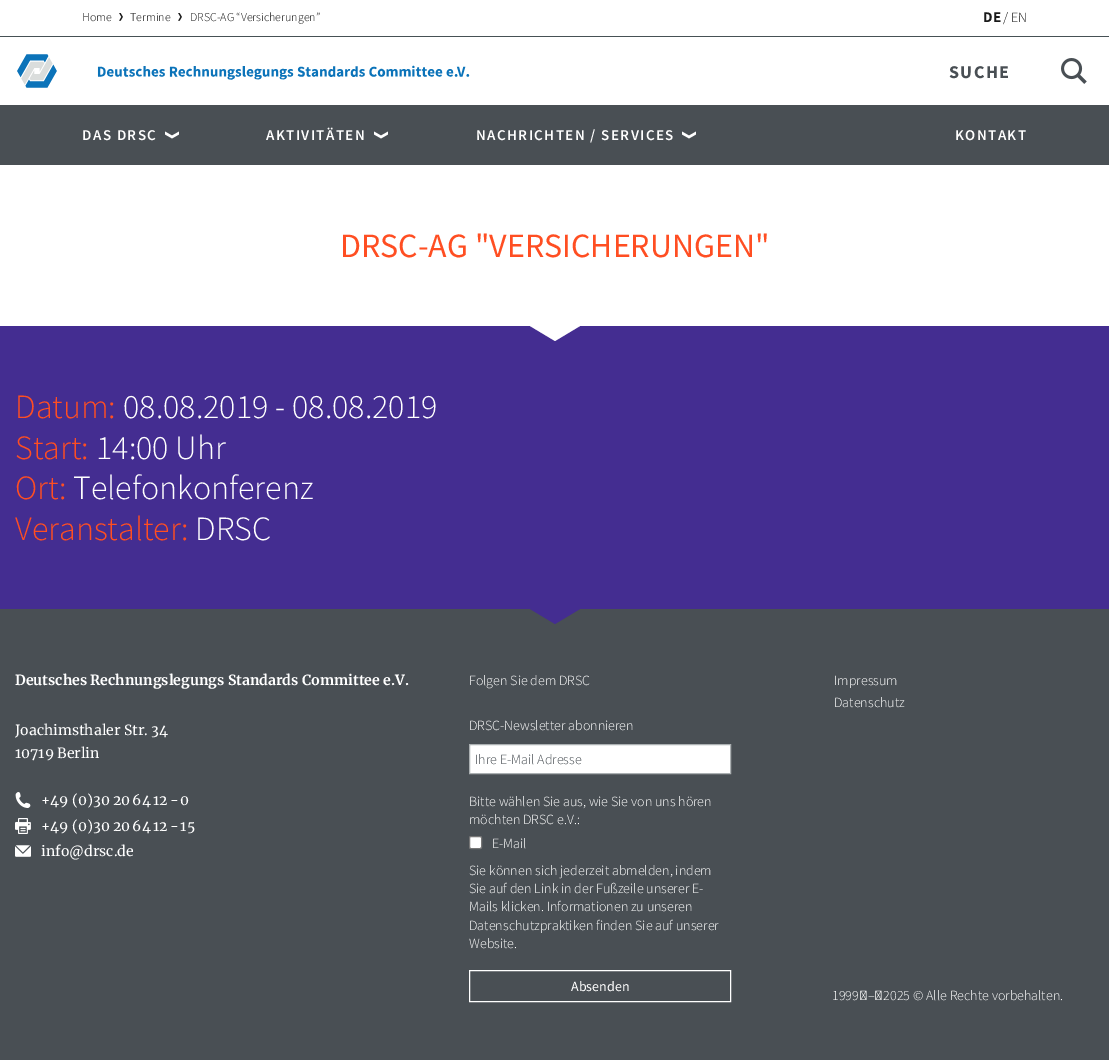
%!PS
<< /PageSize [1109 1060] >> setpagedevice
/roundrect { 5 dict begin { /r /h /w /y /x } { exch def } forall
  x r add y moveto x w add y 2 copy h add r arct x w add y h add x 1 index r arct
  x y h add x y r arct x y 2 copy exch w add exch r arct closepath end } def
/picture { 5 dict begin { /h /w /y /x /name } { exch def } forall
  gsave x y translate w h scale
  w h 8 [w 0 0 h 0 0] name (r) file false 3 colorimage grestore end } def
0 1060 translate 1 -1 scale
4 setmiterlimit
1 setgray
0 0 1109 1060 rectfill
0.275 0.318 0.333 setrgbcolor
0 36 1109 1 rectfill
/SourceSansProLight-Light [12 0 0 -12 0 0] selectfont
0.102 setgray
82 21 moveto (Home) show
(img1.rgb) 119 13 4 8 picture
130 21 moveto (Termine) show
(img1.rgb) 178 13 4 8 picture
190 21 moveto (DRSC-AG “Versicherungen”) show
/SourceSansPro-Bold [15 0 0 -15 0 0] selectfont
983 22 moveto (DE) show
/SourceSansProLight-Light [14 0 0 -14 0 0] selectfont
1003 22 moveto (/ EN) show
(img2.rgb) 17 54 453 34 picture
/SourceSansPro-Bold [18 0 0 -18 0 0] selectfont
0.286 0.31 0.329 setrgbcolor
949 78 moveto 1.4 0 (SUCHE) ashow
(img3.rgb) 1061 58 26 26 picture
0 105 1109 60 rectfill
/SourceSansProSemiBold-SemiBold [15 0 0 -15 0 0] selectfont
1 setgray
82 140 moveto 1.4 0 (DAS DRSC) ashow
(img4.rgb) 165 131 14 8 picture
266 140 moveto 1.4 0 (AKTIVITÄTEN) ashow
(img4.rgb) 374 131 14 8 picture
476 140 moveto 1.4 0 (NACHRICHTEN / SERVICES) ashow
(img4.rgb) 682 131 14 8 picture
955 140 moveto 1.4 0 (KONTAKT) ashow
/SourceSansPro-Regular [34 0 0 -34 0 0] selectfont
1 0.306 0.133 setrgbcolor
340 257 moveto (DRSC-AG "VERSICHERUNGEN") show
0.267 0.176 0.569 setrgbcolor
0 326 1109 283 rectfill
1 setgray
newpath 530 326 moveto 580 326 lineto 555 341 lineto closepath fill
/SourceSansProLight-Light [34 0 0 -34 0 0] selectfont
1 0.306 0.133 setrgbcolor
15 418 moveto (Datum:) show
1 setgray
123 418 moveto (08.08.2019 - 08.08.2019) show
1 0.306 0.133 setrgbcolor
15 459 moveto (Start:) show
1 setgray
96 459 moveto (14:00 Uhr) show
1 0.306 0.133 setrgbcolor
15 499 moveto (Ort:) show
1 setgray
73 499 moveto (Telefonkonferenz) show
1 0.306 0.133 setrgbcolor
15 540 moveto (Veranstalter:) show
1 setgray
195 540 moveto (DRSC) show
0.286 0.31 0.329 setrgbcolor
0 609 1109 451 rectfill
0.267 0.176 0.569 setrgbcolor
newpath 530 609 moveto 580 609 lineto 555 624 lineto closepath fill
/Merriweather-Bold [14 0 0 -14 0 0] selectfont
1 setgray
15 685 moveto (Deutsches Rechnungslegungs Standards Committee e.V.) show
/Merriweather-Regular [14 0 0 -14 0 0] selectfont
15 735 moveto (Joachimsthaler Str. 34) show
15 758 moveto (10719 Berlin) show
(img5.rgb) 15 792 16 16 picture
41 805 moveto (+49 \(0\)30 20 64 12 - 0) show
(img6.rgb) 15 818 16 16 picture
41 831 moveto (+49 \(0\)30 20 64 12 - 15) show
(img7.rgb) 15 845 16 12 picture
41 856 moveto (info@drsc.de) show
/SourceSansProLight-Light [14 0 0 -14 0 0] selectfont
469 685 moveto (Folgen Sie dem DRSC) show
469 730 moveto (DRSC-Newsletter abonnieren) show
newpath 469.5 744.5 moveto 730.5 744.5 lineto 730.5 773.5 lineto 469.5 773.5 lineto closepath gsave fill grestore
0.671 0.69 0.698 setrgbcolor
stroke
0.286 0.31 0.329 setrgbcolor
475 764 moveto (Ihre E-Mail Adresse) show
1 setgray
469 806 moveto (Bitte wählen Sie aus, wie Sie von uns hören) show
469 824 moveto (möchten DRSC e.V.:) show
469.5 836.5 12 12 1.5 roundrect gsave fill grestore
0.463 setgray
stroke
1 setgray
492 848 moveto (E-Mail) show
469 875 moveto (Sie können sich jederzeit abmelden, indem) show
469 893 moveto (Sie auf den Link in der Fußzeile unserer E-) show
469 911 moveto (Mails klicken. Informationen zu unseren) show
469 930 moveto (Datenschutzpraktiken finden Sie auf unserer) show
469 948 moveto (Website.) show
469.5 970.5 261 31 rectstroke
/SourceSansPro-Regular [14 0 0 -14 0 0] selectfont
571 991 moveto (Absenden) show
/SourceSansProLight-Light [14 0 0 -14 0 0] selectfont
834 685 moveto (Impressum) show
834 707 moveto (Datenschutz) show
832 1000 moveto (1999 – 2025 © Alle Rechte vorbehalten.) show
showpage
